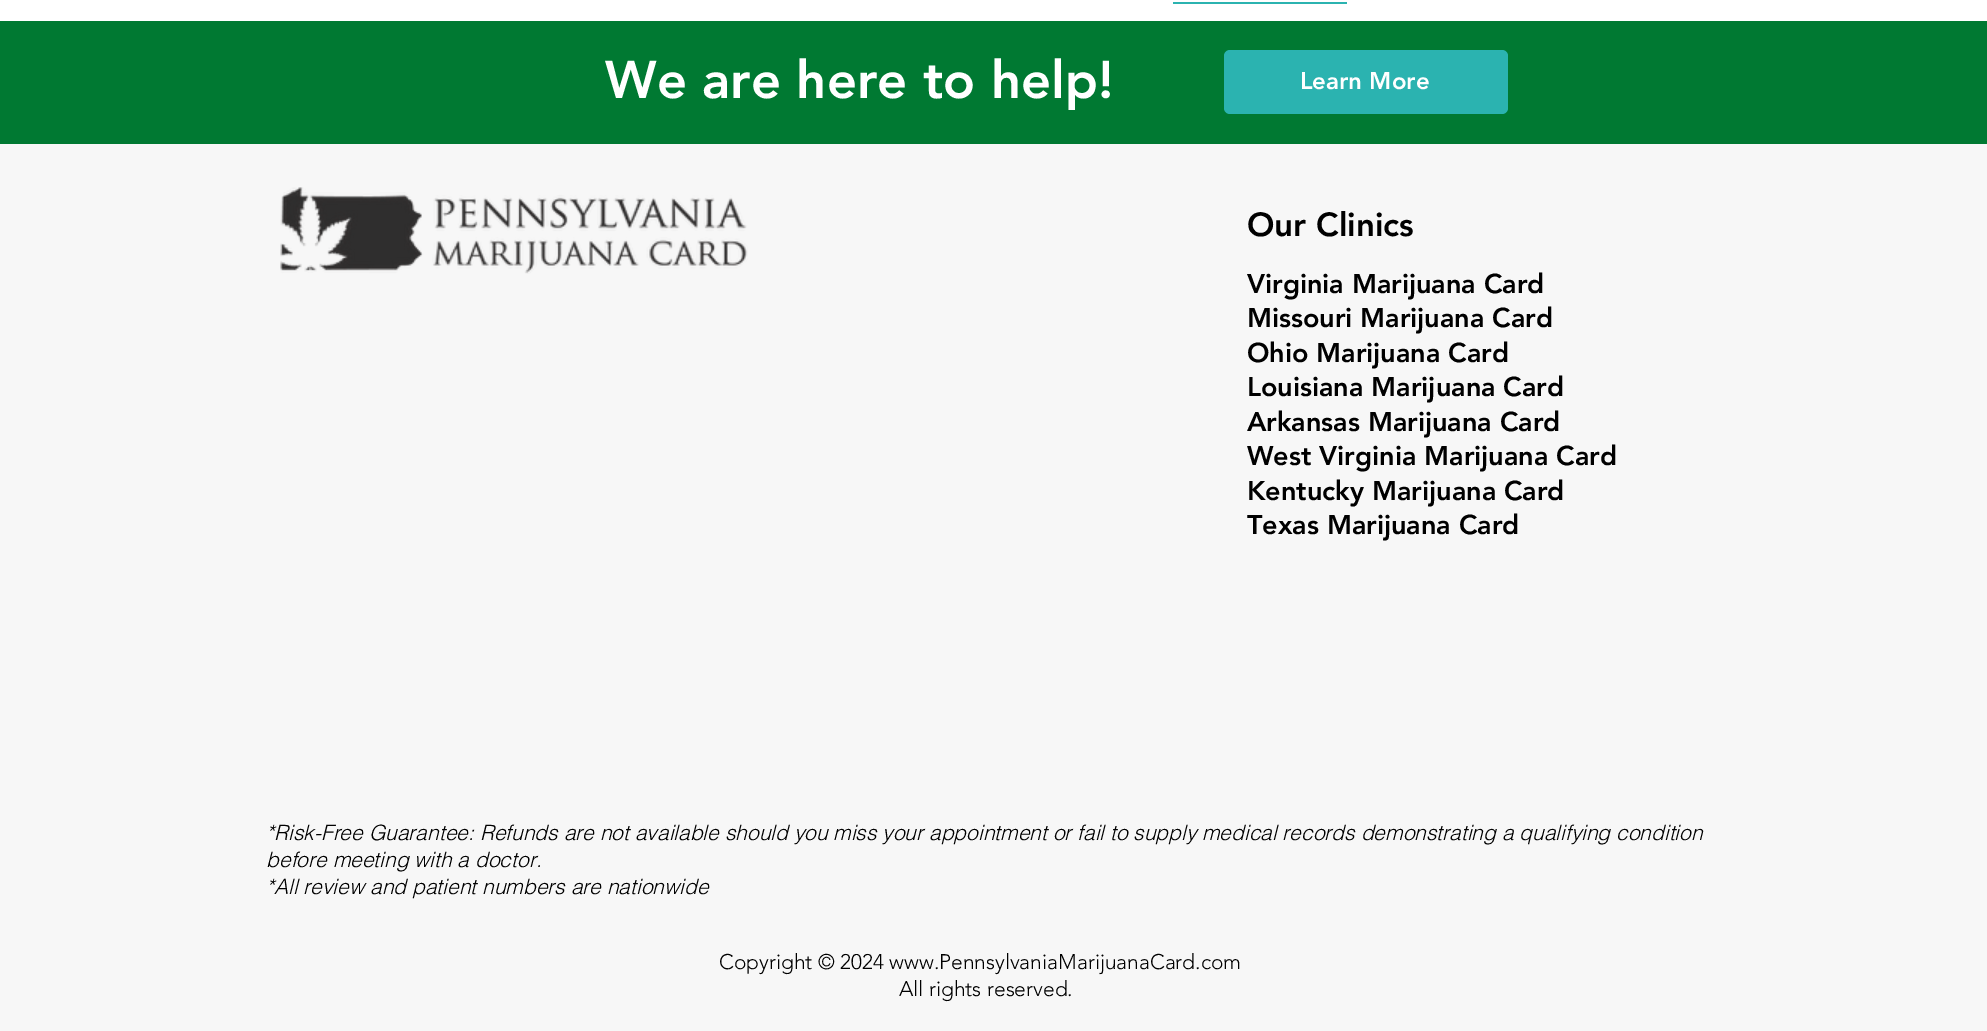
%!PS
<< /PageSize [1987 1031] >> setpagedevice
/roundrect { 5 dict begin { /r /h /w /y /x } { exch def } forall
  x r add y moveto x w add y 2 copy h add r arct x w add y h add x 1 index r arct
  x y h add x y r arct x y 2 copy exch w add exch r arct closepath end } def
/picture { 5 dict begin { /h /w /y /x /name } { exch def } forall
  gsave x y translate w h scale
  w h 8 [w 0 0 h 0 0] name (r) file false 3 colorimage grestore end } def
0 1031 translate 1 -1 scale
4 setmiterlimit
1 setgray
0 0 1987 1031 rectfill
0.169 0.702 0.69 setrgbcolor
1173 2 174 2 rectfill
0 0.475 0.196 setrgbcolor
0 21 1987 123 rectfill
/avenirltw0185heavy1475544-Black [52.5 0 0 -52.5 0 0] selectfont
1 setgray
605 98 moveto (We are here to help!) show
0.169 0.702 0.69 setrgbcolor
1224 50 284 64 6 roundrect fill
/avenirltw0185heavy1475544-Black [24 0 0 -24 0 0] selectfont
1 setgray
1300 89 moveto (Learn More) show
0.969 setgray
0 144 1987 887 rectfill
(img1.rgb) 280 187 468 87 picture
/avenirltw0185heavy1475544-Black [33 0 0 -33 0 0] selectfont
0 setgray
1247 236 moveto (Our Clinics) show
/avenirltw0185heavy1475544-Black [27 0 0 -27 0 0] selectfont
1247 293 moveto (Virginia Marijuana Card) show
1247 327 moveto (Missouri Marijuana Card) show
1247 362 moveto (Ohio Marijuana Card) show
1247 396 moveto (Louisiana Marijuana Card) show
1247 431 moveto (Arkansas Marijuana Card) show
1247 465 moveto (West Virginia Marijuana Card) show
1247 500 moveto (Kentucky Marijuana Card) show
1247 534 moveto (Texas Marijuana Card) show
/helvetica-LightItalic [21 0 0 -21 0 0] selectfont
266 840 moveto (*Risk-Free Guarantee: Refunds are not available should you miss your appointment or fail to supply medical records demonstrating a qualifying condition) show
266 867 moveto (before meeting with a doctor.) show
266 894 moveto (*All review and patient numbers are nationwide) show
/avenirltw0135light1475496-Light [21 0 0 -21 0 0] selectfont
719 969 moveto (Copyright © 2024 www.PennsylvaniaMarijuanaCard.com) show
899 996 moveto (All rights reserved.) show
showpage
